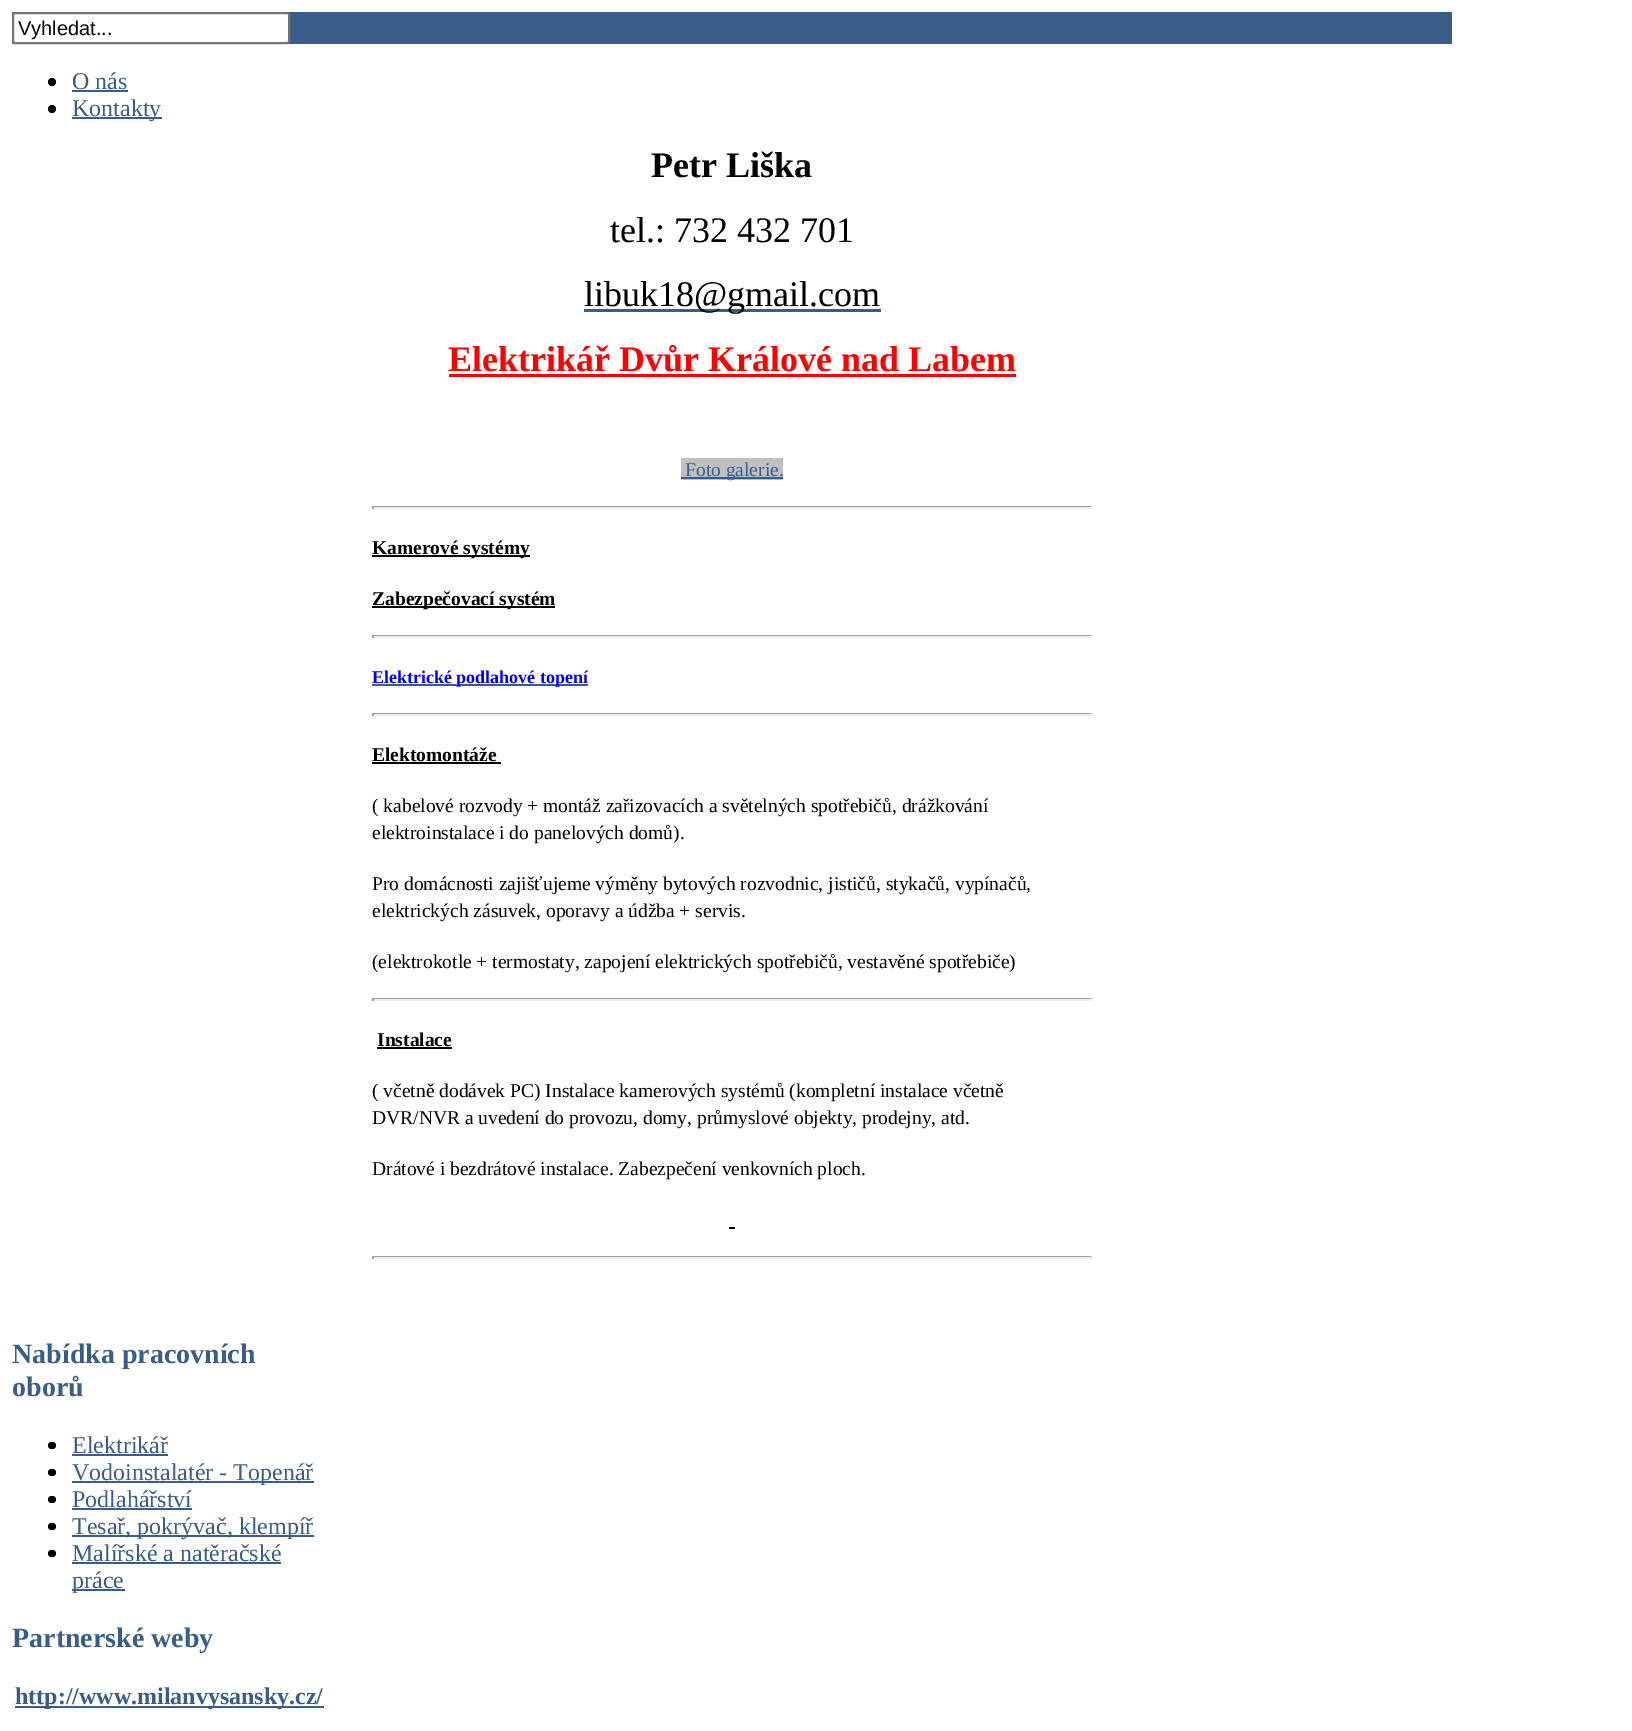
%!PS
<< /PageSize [1632 1731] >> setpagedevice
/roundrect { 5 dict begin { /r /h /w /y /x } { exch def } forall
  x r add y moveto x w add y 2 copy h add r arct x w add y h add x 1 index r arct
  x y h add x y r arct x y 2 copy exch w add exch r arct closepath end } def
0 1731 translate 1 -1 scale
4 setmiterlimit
1 setgray
0 0 1632 1731 rectfill
0.22 0.365 0.541 setrgbcolor
12 12 1440 32 rectfill
1 setgray
13 13 276 30 2 roundrect gsave fill grestore
0.463 setgray
2 setlinewidth
stroke
/LiberationSans-Regular [20 0 0 -20 0 0] selectfont
0 setgray
18 35 moveto (Vyhledat...) show
newpath 52 82 4 0 360 arc closepath fill
/LiberationSerif-Regular [24 0 0 -24 0 0] selectfont
0.22 0.365 0.541 setrgbcolor
72 89 moveto (O nás) show
72 90 56 2 rectfill
0 setgray
newpath 52 109 4 0 360 arc closepath fill
0.22 0.365 0.541 setrgbcolor
72 117 90 2 rectfill
72 116 moveto (Kontakty) show
/LiberationSerif-Bold [36 0 0 -36 0 0] selectfont
0 setgray
651 177 moveto (Petr Liška) show
/LiberationSerif-Regular [36 0 0 -36 0 0] selectfont
610 242 moveto (tel.: 732 432 701) show
0.22 0.365 0.541 setrgbcolor
584 309 297 3 rectfill
0 setgray
584 306 moveto (libuk18@gmail.com) show
/LiberationSerif-Bold [36 0 0 -36 0 0] selectfont
1 0 0 setrgbcolor
448 371 moveto (Elektrikář Dvůr Králové nad Labem) show
449 374 567 3 rectfill
0.753 setgray
681 458 102 22 rectfill
0.22 0.365 0.541 setrgbcolor
681 477 102 2 rectfill
/LiberationSerif-Regular [19.5 0 0 -19.5 0 0] selectfont
685 476 moveto (Foto galerie.) show
0.624 setgray
372 506 720 1 rectfill
0.933 setgray
1091 506 2 3 rectfill
372 507 720 2 rectfill
0.624 setgray
372 506 2 3 rectfill
0 setgray
372 555 158 2 rectfill
/LiberationSerif-Bold [19.5 0 0 -19.5 0 0] selectfont
372 554 moveto (Kamerové systémy) show
372 606 183 2 rectfill
372 605 moveto (Zabezpečovací systém) show
0.624 setgray
372 635 720 1 rectfill
0.933 setgray
1091 635 2 3 rectfill
372 636 720 2 rectfill
0.624 setgray
372 635 2 3 rectfill
0.22 0.365 0.541 setrgbcolor
372 684 216 2 rectfill
/LiberationSerif-Bold [18 0 0 -18 0 0] selectfont
0 0 1 setrgbcolor
372 683 moveto (Elektrické podlahové topení) show
0.624 setgray
372 713 720 1 rectfill
0.933 setgray
1091 713 2 3 rectfill
372 714 720 2 rectfill
0.624 setgray
372 713 2 3 rectfill
/LiberationSerif-Bold [19.5 0 0 -19.5 0 0] selectfont
0 setgray
372 761 moveto (Elektomontáže) show
372 762 129 2 rectfill
/LiberationSerif-Regular [19.5 0 0 -19.5 0 0] selectfont
372 812 moveto (\( kabelové rozvody + montáž zařizovacích a světelných spotřebičů, drážkování) show
372 839 moveto (elektroinstalace i do panelových domů\).) show
372 890 moveto (Pro domácnosti zajišťujeme výměny bytových rozvodnic, jističů, stykačů, vypínačů,) show
372 917 moveto (elektrických zásuvek, oporavy a údžba + servis.) show
372 968 moveto (\(elektrokotle + termostaty, zapojení elektrických spotřebičů, vestavěné spotřebiče\)) show
0.624 setgray
372 998 720 1 rectfill
0.933 setgray
1091 998 2 3 rectfill
372 999 720 2 rectfill
0.624 setgray
372 998 2 3 rectfill
/LiberationSerif-Bold [19.5 0 0 -19.5 0 0] selectfont
0 setgray
377 1046 moveto (Instalace) show
377 1047 75 2 rectfill
/LiberationSerif-Regular [19.5 0 0 -19.5 0 0] selectfont
372 1097 moveto (\( včetně dodávek PC\) Instalace kamerových systémů \(kompletní instalace včetně) show
372 1124 moveto (DVR/NVR a uvedení do provozu, domy, průmyslové objekty, prodejny, atd.) show
372 1175 moveto (Drátové i bezdrátové instalace. Zabezpečení venkovních ploch.) show
729 1227 6 2 rectfill
0.624 setgray
372 1256 720 1 rectfill
0.933 setgray
1091 1256 2 3 rectfill
372 1257 720 2 rectfill
0.624 setgray
372 1256 2 3 rectfill
/LiberationSerif-Bold [28 0 0 -28 0 0] selectfont
0.22 0.365 0.541 setrgbcolor
12 1363 moveto (Nabídka pracovních) show
12 1396 moveto (oborů) show
0 setgray
48 1442 8 7 3.5 roundrect fill
/LiberationSerif-Regular [24 0 0 -24 0 0] selectfont
0.22 0.365 0.541 setrgbcolor
72 1453 moveto (Elektrikář) show
72 1454 96 2 rectfill
0 setgray
48 1469 8 7 3.5 roundrect fill
0.22 0.365 0.541 setrgbcolor
72 1481 242 2 rectfill
72 1480 moveto (Vodoinstalatér - Topenář) show
0 setgray
48 1496 8 7 3.5 roundrect fill
0.22 0.365 0.541 setrgbcolor
72 1507 moveto (Podlahářství) show
72 1508 120 2 rectfill
0 setgray
48 1523 8 7 3.5 roundrect fill
0.22 0.365 0.541 setrgbcolor
72 1535 242 2 rectfill
72 1534 moveto (Tesař, pokrývač, klempíř) show
0 setgray
48 1550 8 7 3.5 roundrect fill
0.22 0.365 0.541 setrgbcolor
72 1561 moveto (Malířské a natěračské) show
72 1562 209 2 rectfill
72 1589 53 2 rectfill
72 1588 moveto (práce) show
/LiberationSerif-Bold [28 0 0 -28 0 0] selectfont
12 1647 moveto (Partnerské weby) show
15 1706 309 2 rectfill
/LiberationSerif-Bold [24 0 0 -24 0 0] selectfont
15 1704 moveto (http://www.milanvysansky.cz/) show
showpage
